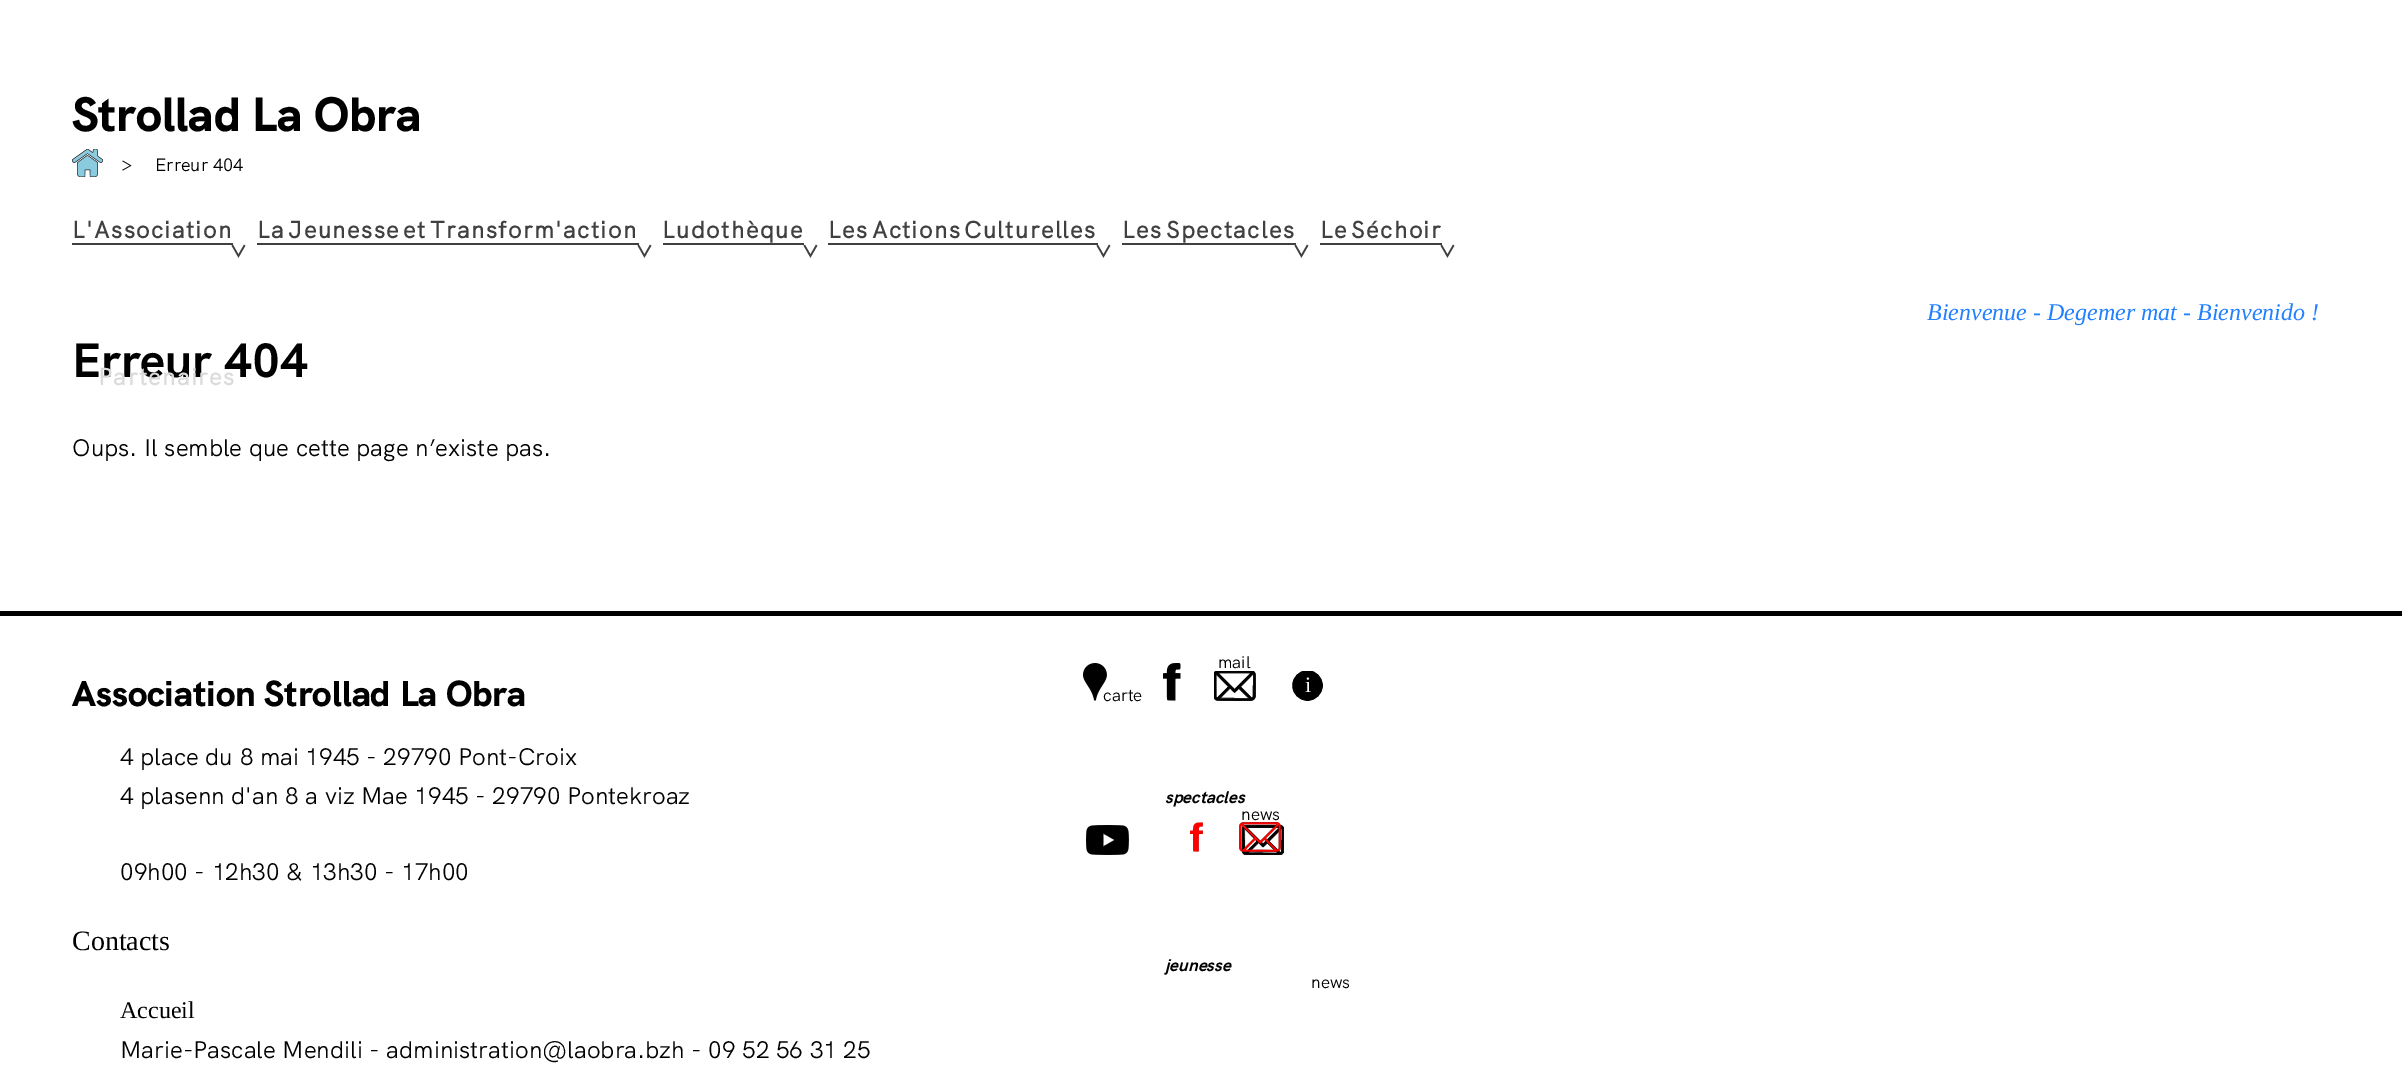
%!PS
<< /PageSize [2402 1088] >> setpagedevice
/picture { 5 dict begin { /h /w /y /x /name } { exch def } forall
  gsave x y translate w h scale
  w h 8 [w 0 0 h 0 0] name (r) file false 3 colorimage grestore end } def
0 1088 translate 1 -1 scale
4 setmiterlimit
1 setgray
0 0 2402 1088 rectfill
/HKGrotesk-ExtraBold [48 0 0 -48 0 0] selectfont
0 setgray
72 131 moveto (Strollad La Obra) show
(img1.rgb) 72 149 32 28 picture
/HKGrotesk-Regular [18 0 0 -18 0 0] selectfont
121 171 moveto (>) show
155 171 moveto (Erreur 404) show
0.251 setgray
72 243 161 2 rectfill
/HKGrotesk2-Bold [23.6 0 0 -23.6 0 0] selectfont
72 238 moveto 1.5 0 (L'Association) ashow
gsave 231 243 translate 90 rotate 0 0 moveto 1.5 0 (>) ashow grestore
/HKGrotesk-Bold [48 0 0 -48 0 0] selectfont
0 setgray
72 377 moveto (Erreur 404) show
/HKGrotesk2-Bold [23.6 0 0 -23.6 0 0] selectfont
0.859 setgray
98 385 moveto 1.5 0 (Partenaires) ashow
0.251 setgray
257 243 382 2 rectfill
257 238 moveto -5 0 32 1.5 0 (La Jeunesse et Transform'action) awidthshow
gsave 637 243 translate 90 rotate 0 0 moveto 1.5 0 (>) ashow grestore
663 243 141 2 rectfill
662 238 moveto 1.5 0 (Ludothèque) ashow
gsave 803 243 translate 90 rotate 0 0 moveto 1.5 0 (>) ashow grestore
828 243 270 2 rectfill
828 238 moveto -5 0 32 1.5 0 (Les Actions Culturelles) awidthshow
gsave 1096 243 translate 90 rotate 0 0 moveto 1.5 0 (>) ashow grestore
1122 243 174 2 rectfill
1122 238 moveto -5 0 32 1.5 0 (Les Spectacles) awidthshow
gsave 1294 243 translate 90 rotate 0 0 moveto 1.5 0 (>) ashow grestore
1320 243 122 2 rectfill
1320 238 moveto -5 0 32 1.5 0 (Le Séchoir) awidthshow
gsave 1440 243 translate 90 rotate 0 0 moveto 1.5 0 (>) ashow grestore
/LiberationSerif-Italic [24 0 0 -24 0 0] selectfont
0.129 0.502 1 setrgbcolor
1927 320 moveto (Bienvenue - Degemer mat - Bienvenido !) show
/HKGrotesk-Regular [24 0 0 -24 0 0] selectfont
0 setgray
72 456 moveto (Oups. Il semble que cette page n’existe pas.) show
0 611 2402 5 rectfill
/HKGrotesk-ExtraBold [36 0 0 -36 0 0] selectfont
72 706 moveto (Association Strollad La Obra) show
/HKGrotesk-Regular [24 0 0 -24 0 0] selectfont
120 765 moveto (4 place du 8 mai 1945 - 29790 Pont-Croix) show
120 804 moveto (4 plasenn d'an 8 a viz Mae 1945 - 29790 Pontekroaz) show
120 880 moveto (09h00 - 12h30 & 13h30 - 17h00) show
/LiberationSerif-Regular [28 0 0 -28 0 0] selectfont
72 950 moveto (Contacts) show
/LiberationSerif-Regular [24 0 0 -24 0 0] selectfont
120 1018 moveto (Accueil) show
/HKGrotesk-Regular [24 0 0 -24 0 0] selectfont
120 1058 moveto (Marie-Pascale Mendili - administration@laobra.bzh - 09 52 56 31 25) show
(img2.rgb) 1163 663 18 38 picture
/HKGrotesk-Regular [17 0 0 -17 0 0] selectfont
1218 668 moveto (mail) show
(img3.rgb) 1214 671 42 30 picture
newpath 1307.5 685.5 14.5 0 360 arc closepath fill
gsave
1292 671 31 30 rectclip
0.004 0 0 setrgbcolor
1.5 setlinewidth
newpath 1307.5 685.5 14.5 0 360 arc closepath stroke
grestore
/LiberationSerif-Regular [22 0 0 -22 0 0] selectfont
1 setgray
1305 692 moveto (i) show
(img4.rgb) 1083 663 24 38 picture
/HKGrotesk-Regular [17 0 0 -17 0 0] selectfont
0 setgray
1103 701 moveto (carte) show
/HKGrotesk-BoldItalic [17 0 0 -17 0 0] selectfont
1165 803 moveto (spectacles) show
/HKGrotesk-Regular [17 0 0 -17 0 0] selectfont
1241 820 moveto (news) show
(img6.rgb) 1242 825 42 30 picture
(img5.rgb) 1239 822 42 30 picture
(img7.rgb) 1086 825 44 30 picture
(img8.rgb) 1190 822 13 30 picture
/HKGrotesk-BoldItalic [17 0 0 -17 0 0] selectfont
1165 971 moveto (jeunesse) show
/HKGrotesk-Regular [17 0 0 -17 0 0] selectfont
1311 988 moveto (news) show
showpage
